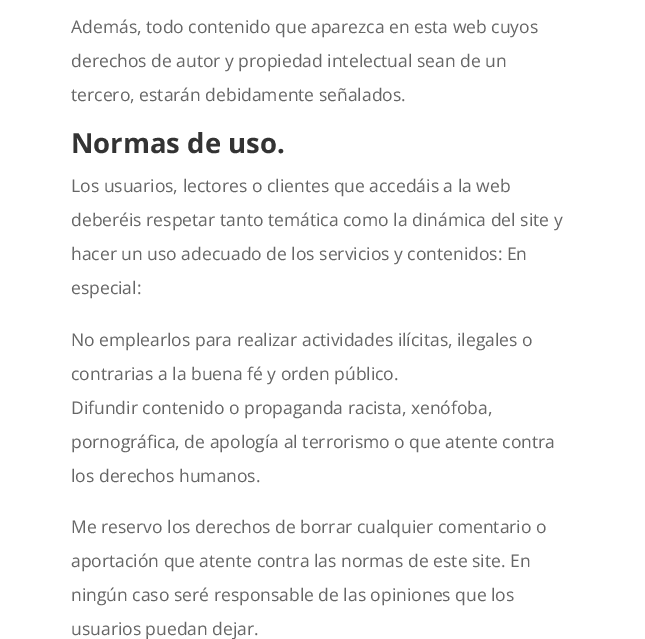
%!PS
<< /PageSize [645 639] >> setpagedevice
0 639 translate 1 -1 scale
4 setmiterlimit
1 setgray
0 0 645 639 rectfill
/OpenSans-Regular [17.5 0 0 -17.5 0 0] selectfont
0.4 setgray
71 33 moveto (Además, todo contenido que aparezca en esta web cuyos) show
71 67 moveto (derechos de autor y propiedad intelectual sean de un) show
71 101 moveto (tercero, estarán debidamente señalados.) show
/OpenSans-Bold [27.5 0 0 -27.5 0 0] selectfont
0.2 setgray
71 153 moveto (Normas de uso.) show
/OpenSans-Regular [17.5 0 0 -17.5 0 0] selectfont
0.4 setgray
71 192 moveto (Los usuarios, lectores o clientes que accedáis a la web) show
71 226 moveto (deberéis respetar tanto temática como la dinámica del site y) show
71 260 moveto (hacer un uso adecuado de los servicios y contenidos: En) show
71 294 moveto (especial:) show
71 346 moveto (No emplearlos para realizar actividades ilícitas, ilegales o) show
71 380 moveto (contrarias a la buena fé y orden público.) show
71 414 moveto (Difundir contenido o propaganda racista, xenófoba,) show
71 448 moveto (pornográfica, de apología al terrorismo o que atente contra) show
71 482 moveto (los derechos humanos.) show
71 533 moveto (Me reservo los derechos de borrar cualquier comentario o) show
71 567 moveto (aportación que atente contra las normas de este site. En) show
71 601 moveto (ningún caso seré responsable de las opiniones que los) show
71 635 moveto (usuarios puedan dejar.) show
showpage
